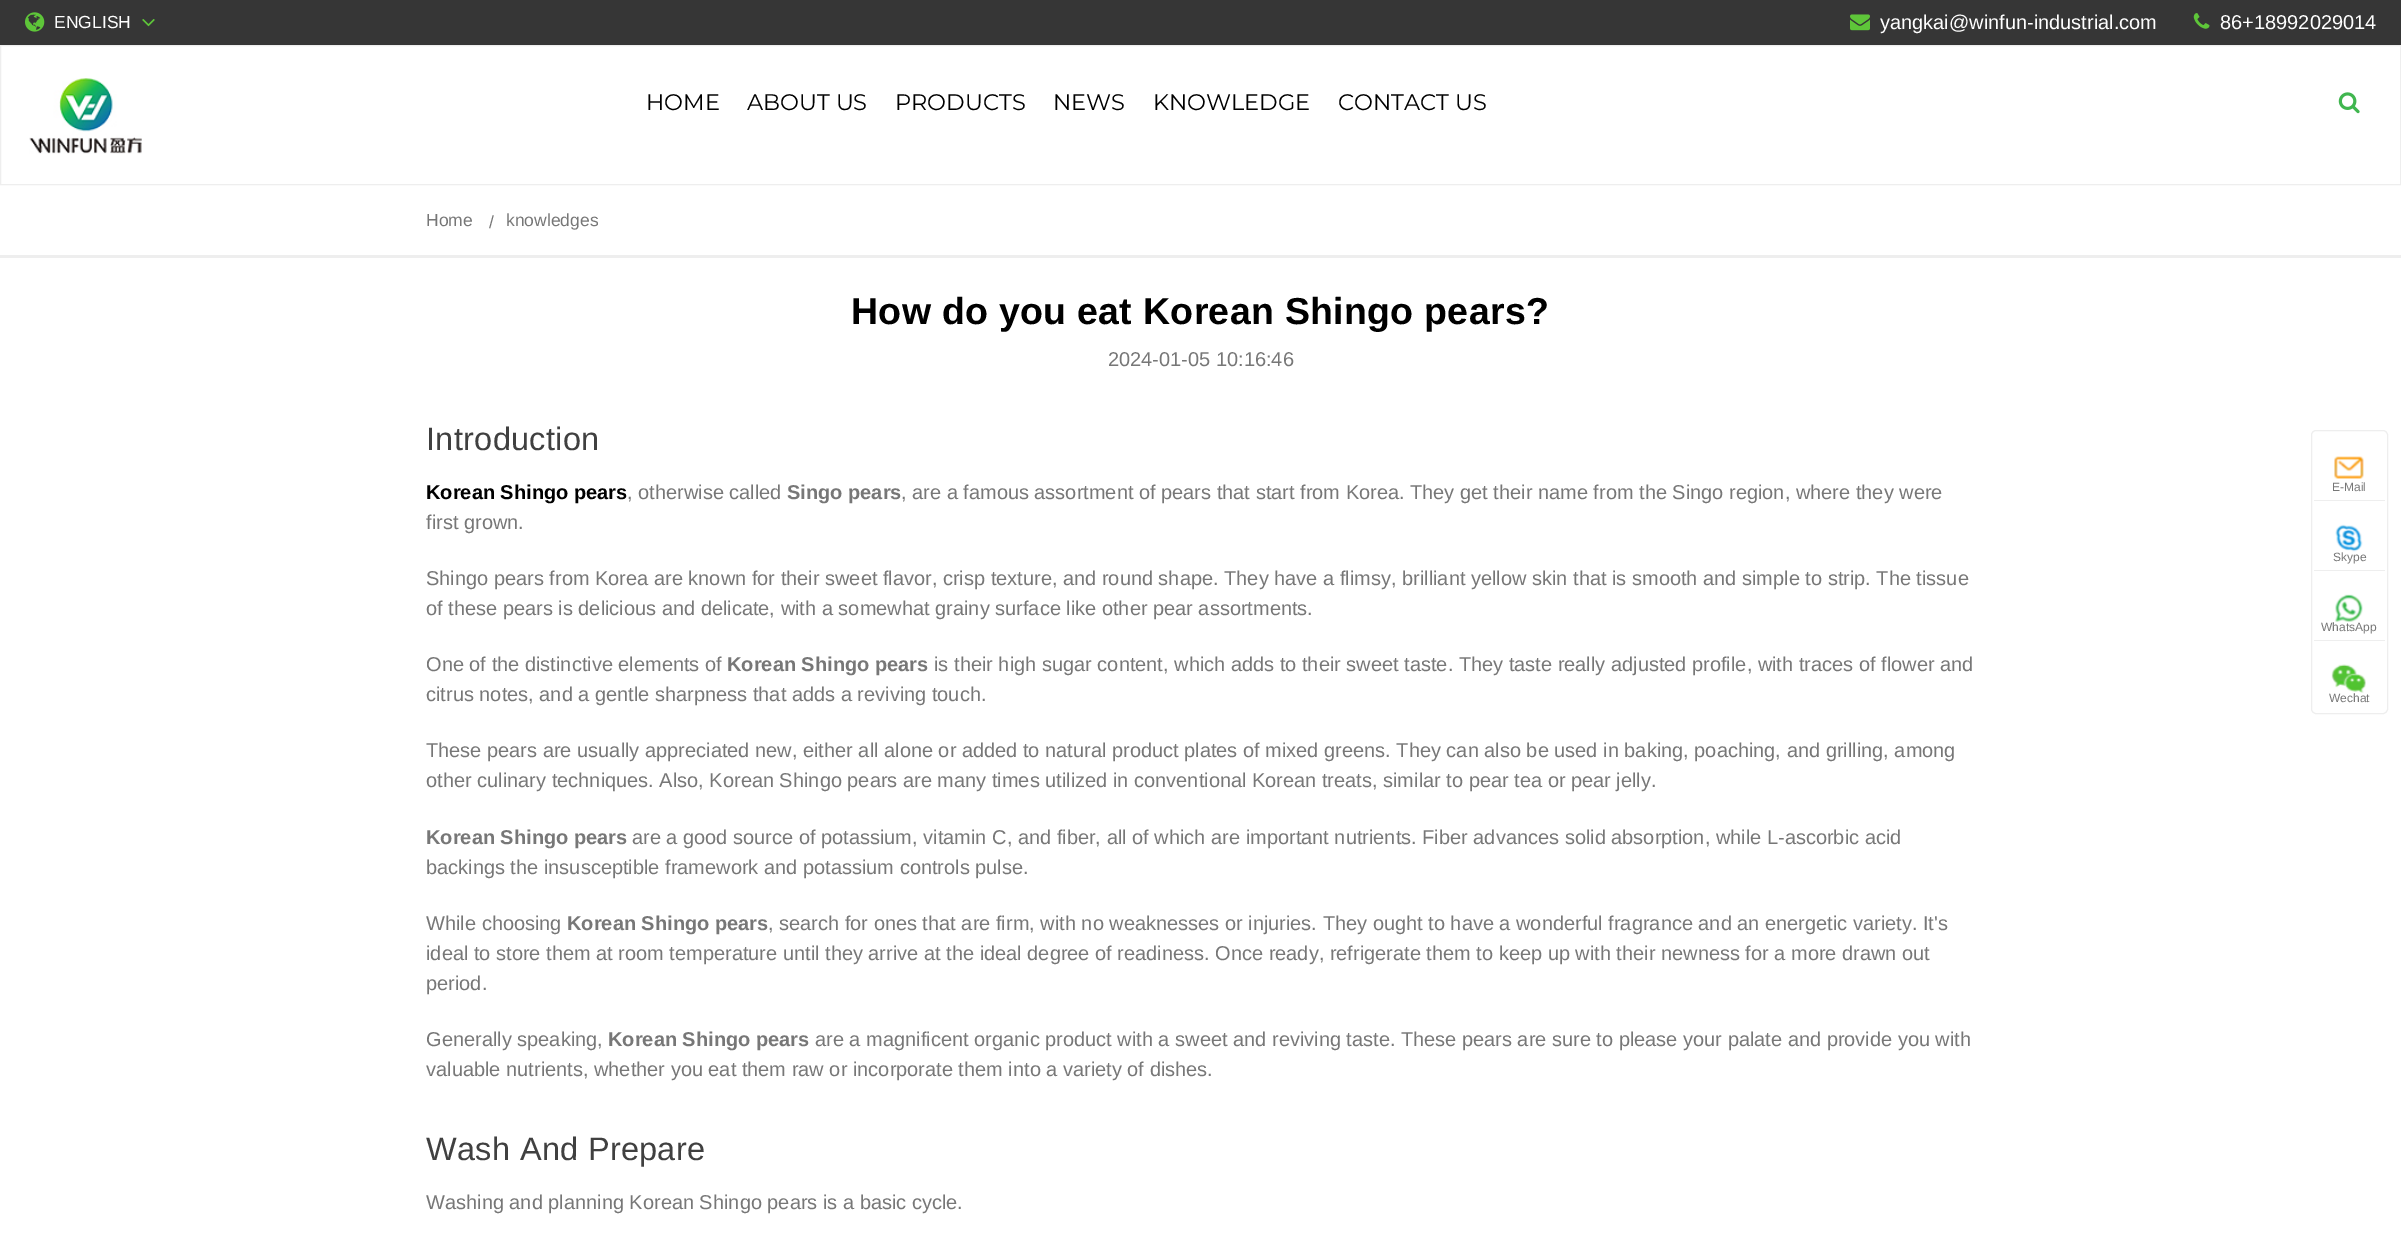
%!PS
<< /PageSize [2401 1243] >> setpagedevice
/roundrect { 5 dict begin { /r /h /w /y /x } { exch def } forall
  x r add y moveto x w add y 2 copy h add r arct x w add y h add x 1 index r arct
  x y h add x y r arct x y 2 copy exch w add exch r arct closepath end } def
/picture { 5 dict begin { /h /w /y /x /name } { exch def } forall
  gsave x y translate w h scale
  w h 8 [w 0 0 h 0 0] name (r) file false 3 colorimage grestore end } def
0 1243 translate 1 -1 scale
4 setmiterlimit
1 setgray
0 0 2401 1243 rectfill
0.212 setgray
0 0 2401 45 rectfill
(img1.rgb) 25 12 20 20 picture
/LiberationSans-Regular [17.5 0 0 -17.5 0 0] selectfont
1 setgray
54 28 moveto (ENGLISH) show
(img2.rgb) 142 19 13 8 picture
(img3.rgb) 1850 14 20 17 picture
/LiberationSans-Regular [20 0 0 -20 0 0] selectfont
1880 29 moveto (yangkai@winfun-industrial.com) show
(img4.rgb) 2193 13 17 16 picture
2220 29 moveto (86+18992029014) show
0.933 setgray
0.5 45.5 2400 139 rectstroke
(img5.rgb) 29 78 113 76 picture
/Montserrat-Regular [22.5 0 0 -22.5 0 0] selectfont
0 setgray
646 110 moveto (HOME) show
747 110 moveto (ABOUT US) show
895 110 moveto (PRODUCTS) show
1053 110 moveto (NEWS) show
1153 110 moveto (KNOWLEDGE) show
1338 110 moveto (CONTACT US) show
(img6.rgb) 2338 92 22 22 picture
0.933 setgray
0 255 2401 3 rectfill
/LiberationSans-Regular [17.5 0 0 -17.5 0 0] selectfont
0.467 setgray
426 226 moveto (Home) show
489 228 moveto (/) show
506 226 moveto (knowledges) show
/LiberationSans-Bold [37.5 0 0 -37.5 0 0] selectfont
0 setgray
851 324 moveto 0.3 0 (How do you eat Korean Shingo pears?) ashow
/LiberationSans-Regular [20 0 0 -20 0 0] selectfont
0.467 setgray
1108 366 moveto (2024-01-05 10:16:46) show
/LiberationSans-Regular [32.5 0 0 -32.5 0 0] selectfont
0.251 setgray
426 450 moveto 0.3 0 (Introduction) ashow
/LiberationSans-Bold [20 0 0 -20 0 0] selectfont
0 setgray
426 499 moveto (Korean Shingo pears) show
/LiberationSans-Regular [20 0 0 -20 0 0] selectfont
0.467 setgray
627 499 moveto (, otherwise called) show
/LiberationSans-Bold [20 0 0 -20 0 0] selectfont
787 499 moveto (Singo pears) show
/LiberationSans-Regular [20 0 0 -20 0 0] selectfont
901 499 moveto (, are a famous assortment of pears that start from Korea. They get their name from the Singo region, where they were) show
426 529 moveto (first grown.) show
426 585 moveto (Shingo pears from Korea are known for their sweet flavor, crisp texture, and round shape. They have a flimsy, brilliant yellow skin that is smooth and simple to strip. The tissue) show
426 615 moveto (of these pears is delicious and delicate, with a somewhat grainy surface like other pear assortments.) show
426 671 moveto (One of the distinctive elements of) show
/LiberationSans-Bold [20 0 0 -20 0 0] selectfont
727 671 moveto (Korean Shingo pears) show
/LiberationSans-Regular [20 0 0 -20 0 0] selectfont
934 671 moveto (is their high sugar content, which adds to their sweet taste. They taste really adjusted profile, with traces of flower and) show
426 701 moveto (citrus notes, and a gentle sharpness that adds a reviving touch.) show
426 757 moveto (These pears are usually appreciated new, either all alone or added to natural product plates of mixed greens. They can also be used in baking, poaching, and grilling, among) show
426 787 moveto (other culinary techniques. Also, Korean Shingo pears are many times utilized in conventional Korean treats, similar to pear tea or pear jelly.) show
/LiberationSans-Bold [20 0 0 -20 0 0] selectfont
426 844 moveto (Korean Shingo pears) show
/LiberationSans-Regular [20 0 0 -20 0 0] selectfont
632 844 moveto (are a good source of potassium, vitamin C, and fiber, all of which are important nutrients. Fiber advances solid absorption, while L-ascorbic acid) show
426 874 moveto (backings the insusceptible framework and potassium controls pulse.) show
426 930 moveto (While choosing) show
/LiberationSans-Bold [20 0 0 -20 0 0] selectfont
567 930 moveto (Korean Shingo pears) show
/LiberationSans-Regular [20 0 0 -20 0 0] selectfont
768 930 moveto (, search for ones that are firm, with no weaknesses or injuries. They ought to have a wonderful fragrance and an energetic variety. It's) show
426 960 moveto (ideal to store them at room temperature until they arrive at the ideal degree of readiness. Once ready, refrigerate them to keep up with their newness for a more drawn out) show
426 990 moveto (period.) show
426 1046 moveto (Generally speaking,) show
/LiberationSans-Bold [20 0 0 -20 0 0] selectfont
608 1046 moveto (Korean Shingo pears) show
/LiberationSans-Regular [20 0 0 -20 0 0] selectfont
815 1046 moveto (are a magnificent organic product with a sweet and reviving taste. These pears are sure to please your palate and provide you with) show
426 1076 moveto (valuable nutrients, whether you eat them raw or incorporate them into a variety of dishes.) show
/LiberationSans-Regular [32.5 0 0 -32.5 0 0] selectfont
0.251 setgray
426 1160 moveto 0.3 0 (Wash And Prepare) ashow
/LiberationSans-Regular [20 0 0 -20 0 0] selectfont
0.467 setgray
426 1209 moveto (Washing and planning Korean Shingo pears is a basic cycle.) show
0.933 setgray
2311.5 430.5 76 283 4.5 roundrect stroke
(img7.rgb) 2334 456 30 23 picture
2314 500 71 1 rectfill
/LiberationSans-Regular [12 0 0 -12 0 0] selectfont
0.467 setgray
2332 491 moveto (E-Mail) show
(img8.rgb) 2335 524 28 28 picture
0.933 setgray
2314 570 71 1 rectfill
0.467 setgray
2333 561 moveto (Skype) show
(img9.rgb) 2335 594 28 28 picture
0.933 setgray
2314 640 71 1 rectfill
0.467 setgray
2321 631 moveto (WhatsApp) show
(img10.rgb) 2331 664 35 29 picture
2329 702 moveto (Wechat) show
showpage
